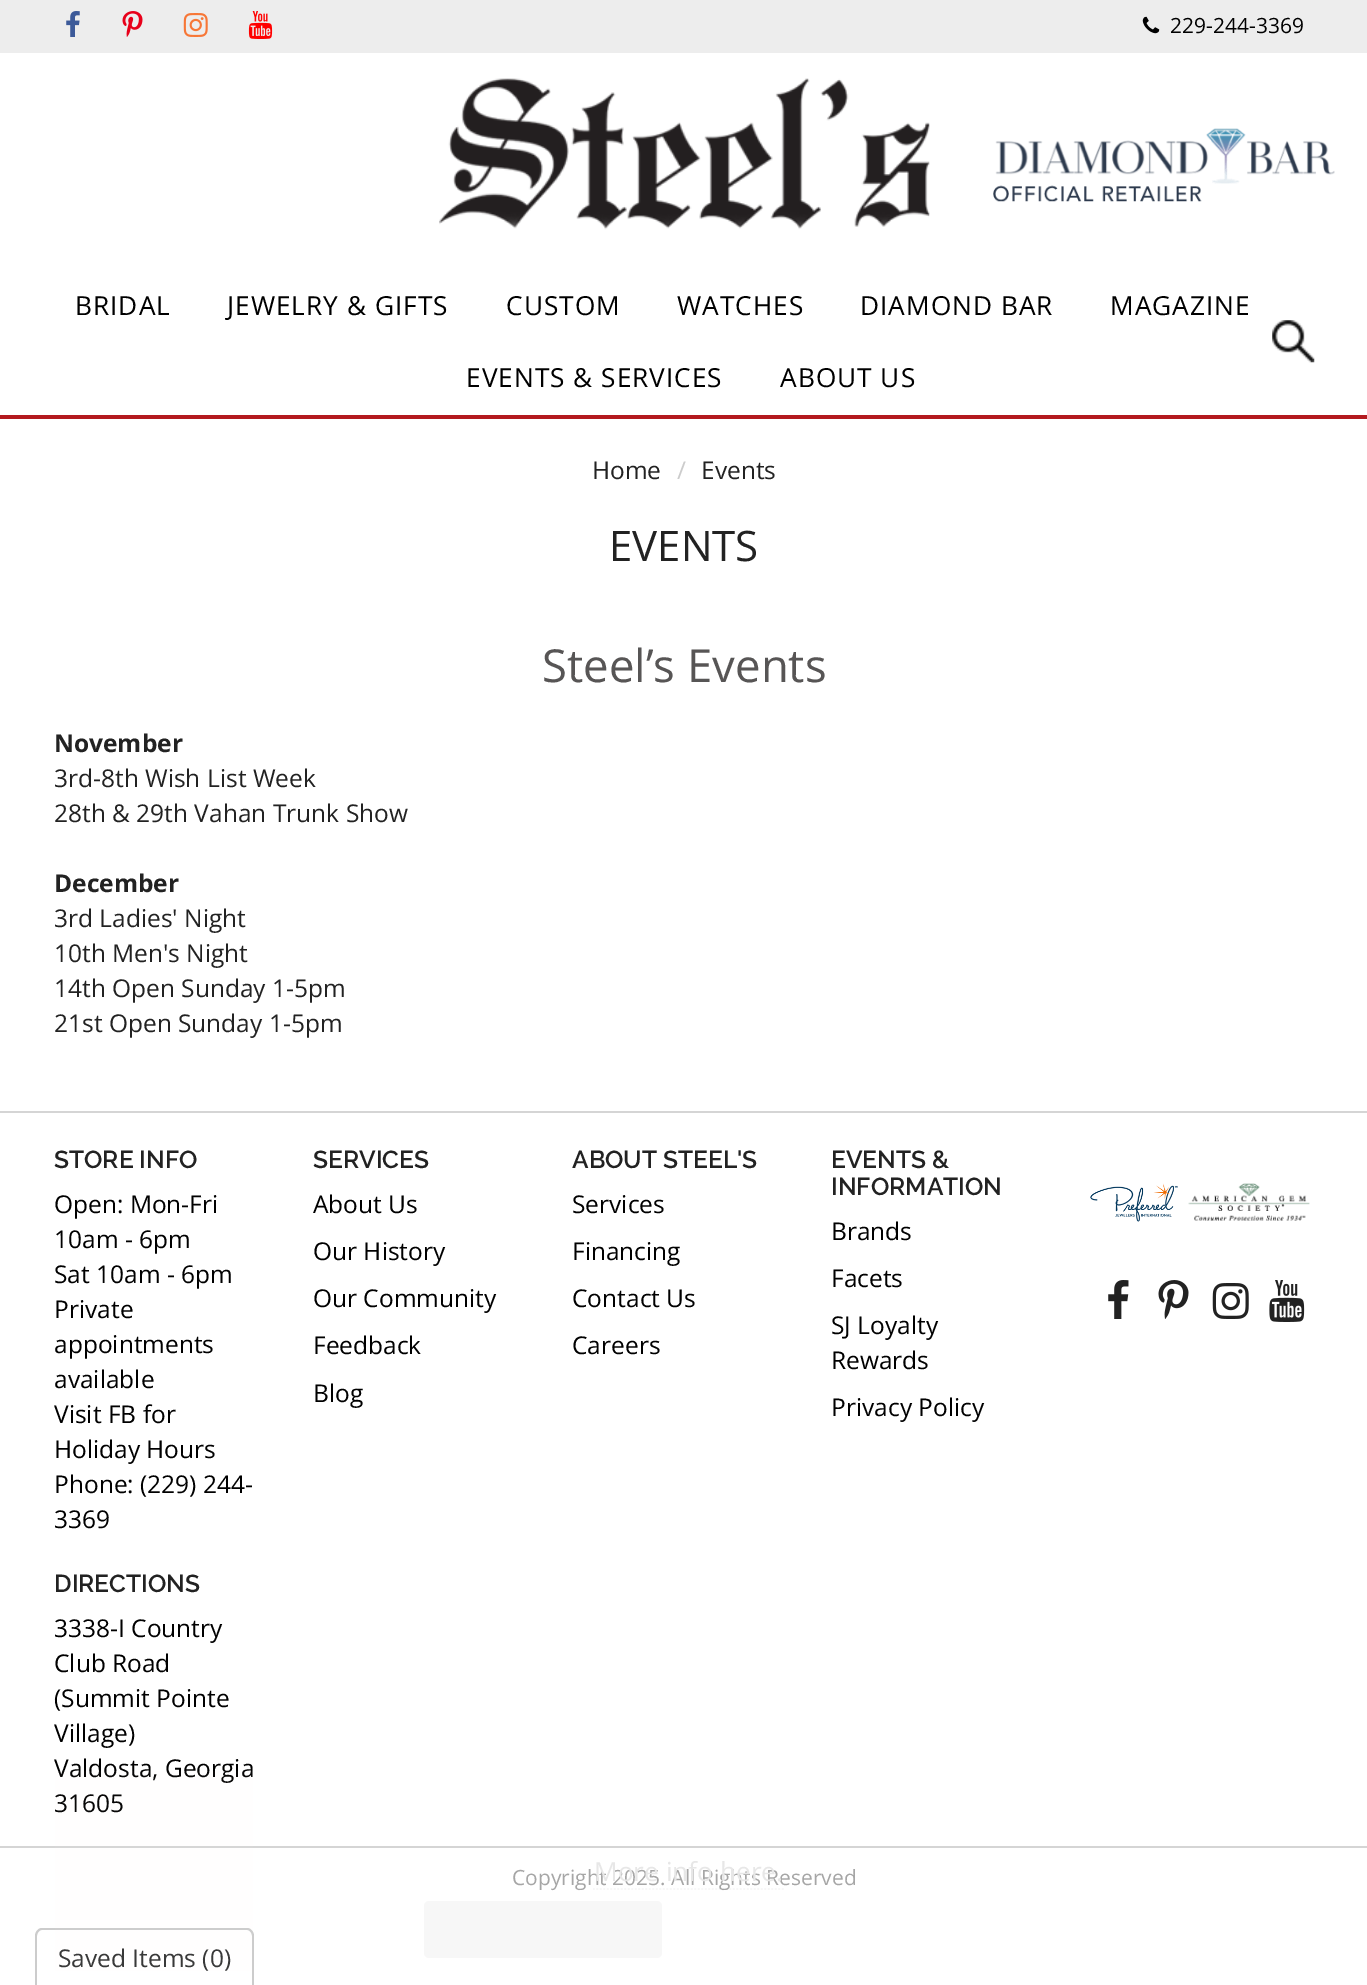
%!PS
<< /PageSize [1367 1985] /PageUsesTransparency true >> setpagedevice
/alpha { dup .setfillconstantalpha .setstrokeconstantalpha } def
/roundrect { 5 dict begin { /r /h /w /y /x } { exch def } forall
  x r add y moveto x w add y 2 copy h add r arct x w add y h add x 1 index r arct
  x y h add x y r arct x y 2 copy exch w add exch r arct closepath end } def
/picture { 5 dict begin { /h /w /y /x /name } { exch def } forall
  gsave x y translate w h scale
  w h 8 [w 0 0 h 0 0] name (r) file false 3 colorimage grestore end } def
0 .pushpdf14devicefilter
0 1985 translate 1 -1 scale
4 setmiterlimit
1 setgray
0 0 1367 1985 rectfill
0.929 setgray
0 0 1367 53 rectfill
(img1.rgb) 66 11 14 26 picture
(img2.rgb) 122 11 21 26 picture
(img3.rgb) 183 13 25 24 picture
(img4.rgb) 248 11 25 28 picture
(img5.rgb) 1142 16 18 18 picture
/OpenSans-Regular [21 0 0 -21 0 0] selectfont
0 setgray
1170 33 moveto (229-244-3369) show
(img6.rgb) 439 78 491 152 picture
(img7.rgb) 993 128 342 74 picture
0.702 0.098 0.118 setrgbcolor
0 415 1367 4 rectfill
/OpenSans-Regular [26.25 0 0 -26.25 0 0] selectfont
0 setgray
75 315 moveto 1 0 (BRIDAL) ashow
227 315 moveto 1 0 (JEWELRY & GIFTS) ashow
506 315 moveto 1 0 (CUSTOM) ashow
677 315 moveto 1 0 (WATCHES) ashow
860 315 moveto 1 0 (DIAMOND BAR) ashow
1110 315 moveto 1 0 (MAGAZINE) ashow
466 387 moveto 1 0 (EVENTS & SERVICES) ashow
780 387 moveto 1 0 (ABOUT US) ashow
(img8.rgb) 1272 320 43 43 picture
/OpenSans-Regular [24.5 0 0 -24.5 0 0] selectfont
0.133 setgray
592 479 moveto (Home) show
0.8 setgray
677 479 moveto (/) show
0.133 setgray
701 479 moveto (Events) show
/OpenSans-Regular [42 0 0 -42 0 0] selectfont
609 561 moveto (EVENTS) show
/OpenSans-Regular [45.5 0 0 -45.5 0 0] selectfont
0.341 0.333 0.333 setrgbcolor
542 682 moveto (Steel’s Events) show
/OpenSans-Bold [24.5 0 0 -24.5 0 0] selectfont
0.133 setgray
54 752 moveto (November) show
/OpenSans-Regular [24.5 0 0 -24.5 0 0] selectfont
54 787 moveto (3rd-8th Wish List Week) show
54 822 moveto (28th & 29th Vahan Trunk Show) show
/OpenSans-Bold [24.5 0 0 -24.5 0 0] selectfont
54 892 moveto (December) show
/OpenSans-Regular [24.5 0 0 -24.5 0 0] selectfont
54 927 moveto (3rd Ladies' Night) show
54 962 moveto (10th Men's Night) show
54 997 moveto (14th Open Sunday 1-5pm) show
54 1032 moveto (21st Open Sunday 1-5pm) show
0.835 setgray
0 1111 1367 2 rectfill
/Raleway-SemiBold [24.5 0 0 -24.5 0 0] selectfont
0.133 setgray
54 1168 moveto (STORE INFO) show
/OpenSans-Regular [24.5 0 0 -24.5 0 0] selectfont
0 setgray
54 1213 moveto (Open: Mon-Fri) show
54 1248 moveto (10am - 6pm) show
54 1283 moveto (Sat 10am - 6pm) show
54 1318 moveto (Private) show
54 1353 moveto (appointments) show
54 1388 moveto (available) show
54 1423 moveto (Visit FB for) show
54 1458 moveto (Holiday Hours) show
54 1493 moveto (Phone: \(229\) 244-) show
54 1528 moveto (3369) show
/Raleway-SemiBold [24.5 0 0 -24.5 0 0] selectfont
0.133 setgray
54 1592 moveto (DIRECTIONS) show
/OpenSans-Regular [24.5 0 0 -24.5 0 0] selectfont
0 setgray
54 1637 moveto (3338-I Country) show
54 1672 moveto (Club Road) show
54 1707 moveto (\(Summit Pointe) show
54 1742 moveto (Village\)) show
54 1777 moveto (Valdosta, Georgia) show
54 1812 moveto (31605) show
/Raleway-SemiBold [24.5 0 0 -24.5 0 0] selectfont
0.133 setgray
313 1168 moveto (SERVICES) show
/OpenSans-Regular [24.5 0 0 -24.5 0 0] selectfont
0 setgray
313 1213 moveto (About Us) show
313 1260 moveto (Our History) show
313 1307 moveto (Our Community) show
313 1354 moveto (Feedback) show
313 1402 moveto (Blog) show
/Raleway-SemiBold [24.5 0 0 -24.5 0 0] selectfont
0.133 setgray
572 1168 moveto (ABOUT STEEL'S) show
/OpenSans-Regular [24.5 0 0 -24.5 0 0] selectfont
0 setgray
572 1213 moveto (Services) show
572 1260 moveto (Financing) show
572 1307 moveto (Contact Us) show
572 1354 moveto (Careers) show
/Raleway-SemiBold [24.5 0 0 -24.5 0 0] selectfont
0.133 setgray
831 1168 moveto (EVENTS &) show
831 1195 moveto (INFORMATION) show
/OpenSans-Regular [24.5 0 0 -24.5 0 0] selectfont
0 setgray
831 1240 moveto (Brands) show
831 1287 moveto (Facets) show
831 1334 moveto (SJ Loyalty) show
831 1369 moveto (Rewards) show
831 1416 moveto (Privacy Policy) show
(img9.rgb) 1090 1183 88 39 picture
(img10.rgb) 1188 1183 122 38 picture
(img11.rgb) 1108 1280 21 39 picture
(img12.rgb) 1158 1280 31 39 picture
(img13.rgb) 1212 1283 37 36 picture
(img14.rgb) 1269 1280 36 42 picture
0.835 setgray
0 1846 1367 2 rectfill
/OpenSans-Regular [21 0 0 -21 0 0] selectfont
0.651 setgray
512 1885 moveto (Copyright 2025. All Rights Reserved) show
0.8 setgray
newpath 42 1928 moveto 247 1928 lineto 251 1928 254 1932 254 1936 curveto 254 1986 lineto 35 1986 lineto 35 1936 lineto 35 1932 38 1928 42 1928 curveto closepath 42 1930 moveto 247 1930 lineto 250 1930 252 1933 252 1936 curveto 252 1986 lineto 37 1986 lineto 37 1936 lineto 37 1933 39 1930 42 1930 curveto closepath eofill
/OpenSans-Regular [24.5 0 0 -24.5 0 0] selectfont
0.2 setgray
58 1967 moveto (Saved Items \(0\)) show
0.03 alpha
0.945 0.929 0.91 setrgbcolor
55 1771 198 200 rectfill
0 setgray
1.8 setlinewidth
[1.75 1.75] 0 setdash
newpath 593 1889 moveto 784 1889 lineto stroke
/OpenSans-Regular [26.25 0 0 -26.25 0 0] selectfont
1 alpha
0.906 setgray
594 1881 moveto (More info here.) show
0.969 setgray
424 1901 238 57 5 roundrect fill
.poppdf14devicefilter showpage
